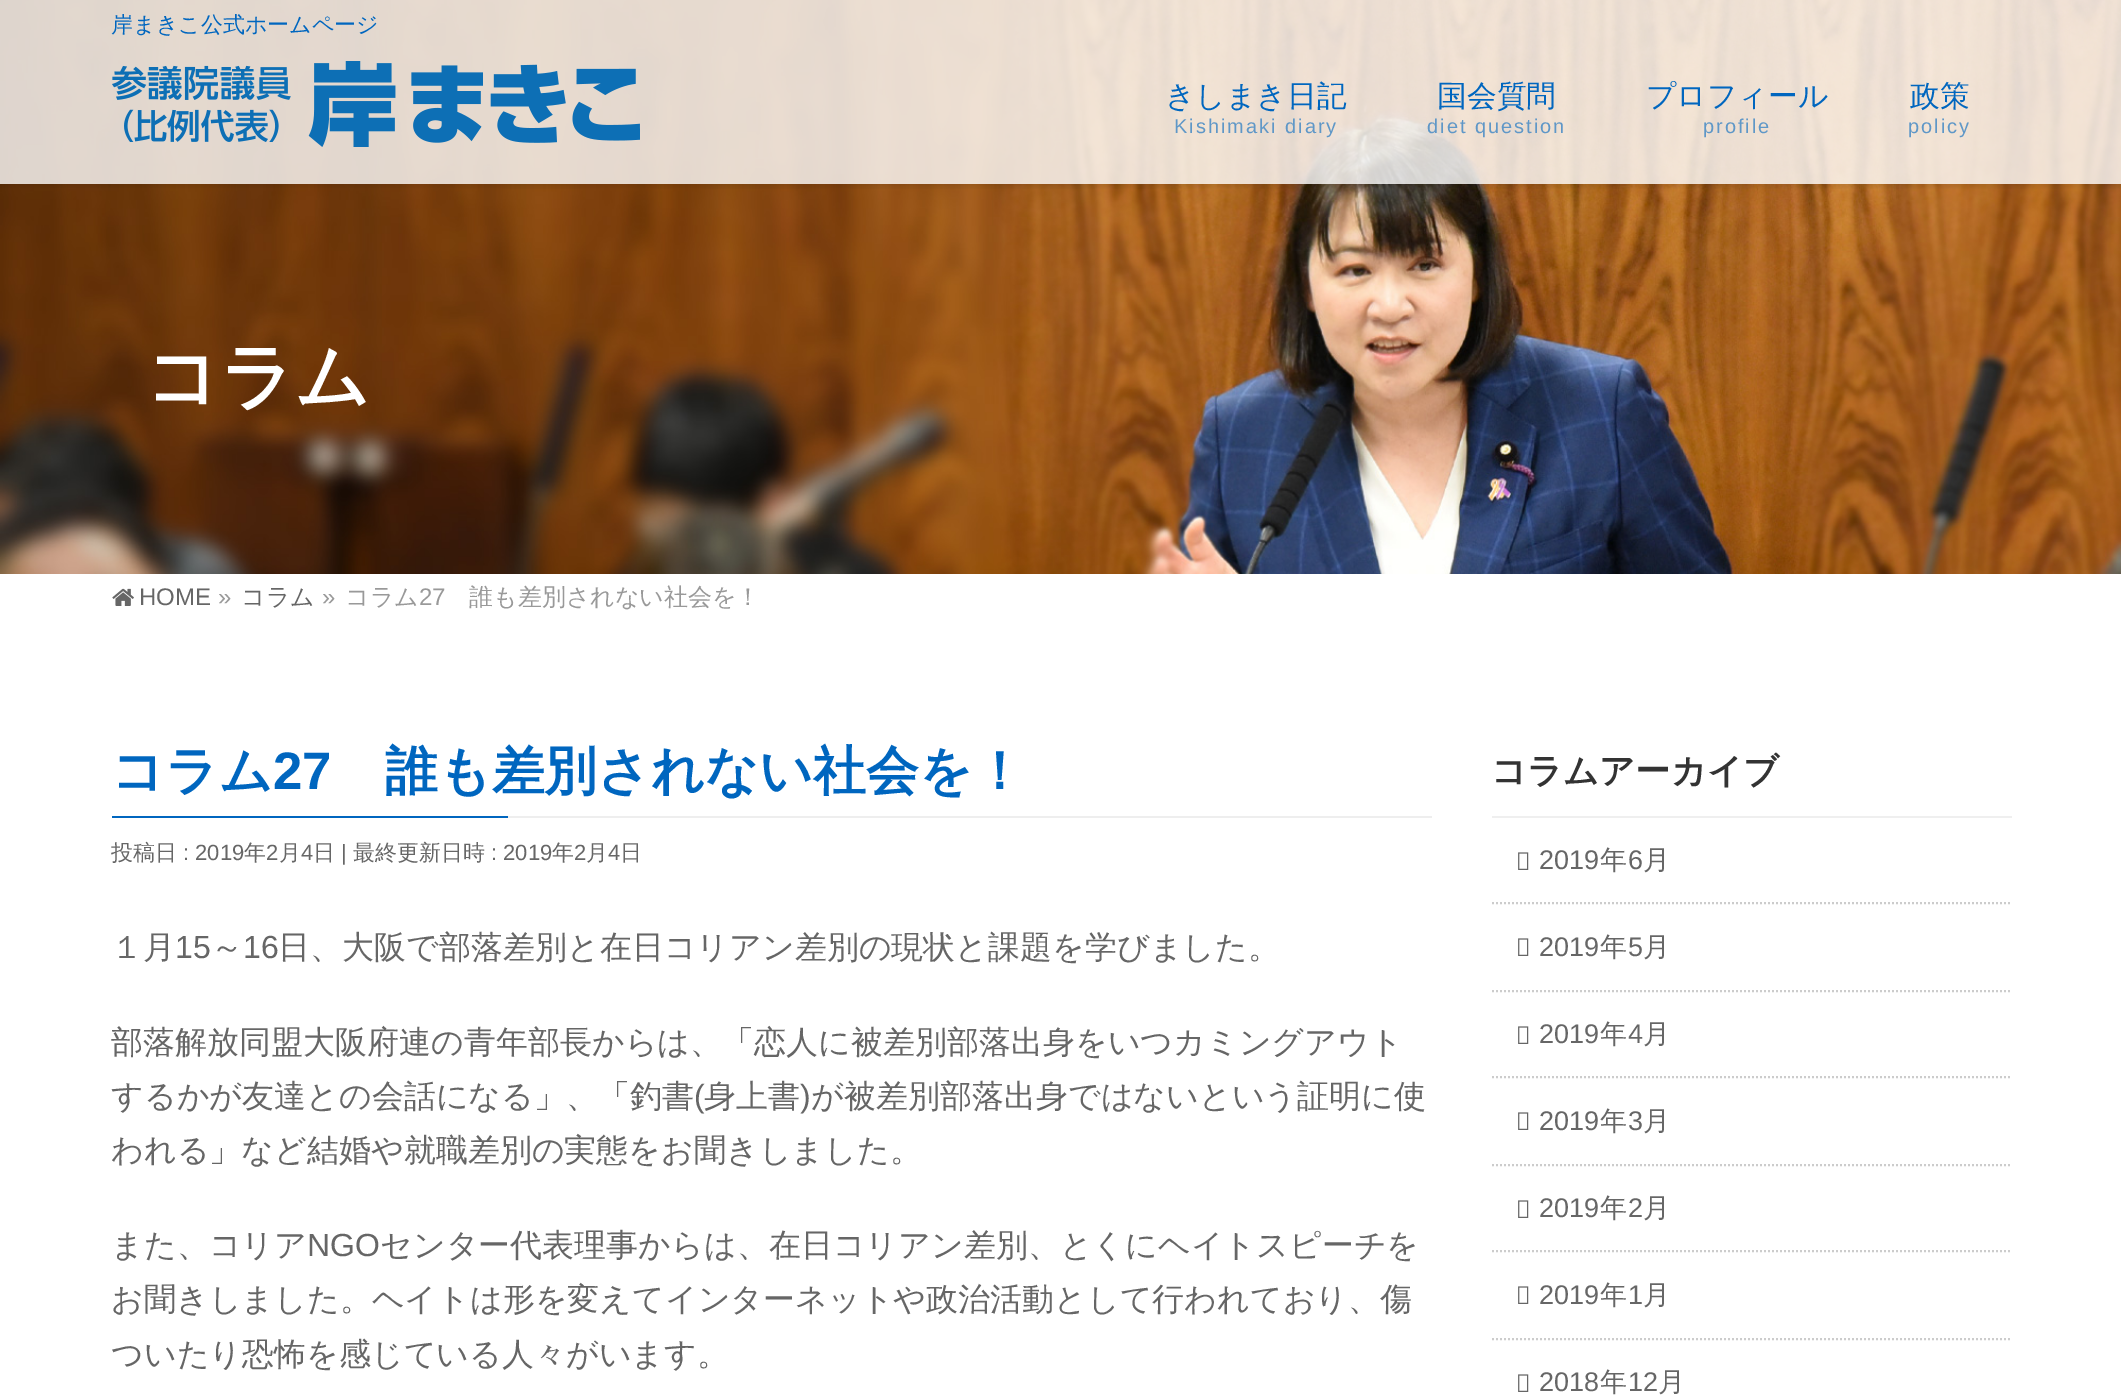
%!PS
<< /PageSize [2121 1395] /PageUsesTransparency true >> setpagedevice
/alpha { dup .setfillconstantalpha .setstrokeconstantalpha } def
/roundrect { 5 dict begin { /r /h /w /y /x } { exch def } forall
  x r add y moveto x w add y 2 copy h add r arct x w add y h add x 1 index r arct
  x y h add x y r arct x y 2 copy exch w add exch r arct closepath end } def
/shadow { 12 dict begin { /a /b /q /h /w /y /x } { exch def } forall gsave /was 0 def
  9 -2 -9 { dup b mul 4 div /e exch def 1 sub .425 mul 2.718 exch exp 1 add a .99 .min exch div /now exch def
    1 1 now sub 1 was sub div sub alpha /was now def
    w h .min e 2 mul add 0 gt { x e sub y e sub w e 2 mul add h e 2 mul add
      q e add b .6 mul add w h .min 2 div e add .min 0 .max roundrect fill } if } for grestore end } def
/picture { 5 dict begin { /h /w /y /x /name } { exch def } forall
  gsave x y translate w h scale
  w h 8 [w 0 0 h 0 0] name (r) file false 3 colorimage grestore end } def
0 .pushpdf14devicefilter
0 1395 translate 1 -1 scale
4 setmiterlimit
1 setgray
0 0 2121 1395 rectfill
(img2.rgb) 0 0 2121 574 picture
gsave
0 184 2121 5 rectclip
0 setgray
0 2 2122 184 0 3 0.1 shadow
grestore
0.8 alpha
0 0 2121 184 rectfill
/WenQuanYiZenHei-Medium [22 0 0 -22 0 0] selectfont
1 alpha
0 0.4 0.749 setrgbcolor
111 32 moveto (岸まきこ公式ホームページ) show
(img1.rgb) 112 61 528 86 picture
/WenQuanYiZenHei-Medium [29.75 0 0 -29.75 0 0] selectfont
1165 106 moveto (きしまき日記) show
/LiberationSans-Regular [20 0 0 -20 0 0] selectfont
0.373 0.592 0.78 setrgbcolor
1174 133 moveto 2 0 (Kishimaki diary) ashow
/WenQuanYiZenHei-Medium [29.75 0 0 -29.75 0 0] selectfont
0 0.4 0.749 setrgbcolor
1437 106 moveto (国会質問) show
/LiberationSans-Regular [20 0 0 -20 0 0] selectfont
0.373 0.592 0.78 setrgbcolor
1427 133 moveto 2 0 (diet question) ashow
/WenQuanYiZenHei-Medium [29.75 0 0 -29.75 0 0] selectfont
0 0.4 0.749 setrgbcolor
1646 106 moveto (プロフィール) show
/LiberationSans-Regular [20 0 0 -20 0 0] selectfont
0.373 0.592 0.78 setrgbcolor
1703 133 moveto 2 0 (profile) ashow
/WenQuanYiZenHei-Medium [29.75 0 0 -29.75 0 0] selectfont
0 0.4 0.749 setrgbcolor
1910 106 moveto (政策) show
/LiberationSans-Regular [20 0 0 -20 0 0] selectfont
0.373 0.592 0.78 setrgbcolor
1908 133 moveto 2 0 (policy) ashow
/WenQuanYiZenHei-Bold [73.5 0 0 -73.5 0 0] selectfont
1 setgray
145 402 moveto (コラム) show
(img3.rgb) 112 588 22 18 picture
/LiberationSans-Regular [24 0 0 -24 0 0] selectfont
0.4 setgray
139 605 moveto (HOME) show
0.6 setgray
218 605 moveto (») show
/WenQuanYiZenHei-Medium [24 0 0 -24 0 0] selectfont
0.4 setgray
241 605 moveto (コラム) show
/LiberationSans-Regular [24 0 0 -24 0 0] selectfont
0.6 setgray
322 605 moveto (») show
/WenQuanYiZenHei-Medium [24 0 0 -24 0 0] selectfont
345 605 moveto (コラム) show
/LiberationSans-Regular [24 0 0 -24 0 0] selectfont
419 605 moveto (27) show
/WenQuanYiZenHei-Medium [24 0 0 -24 0 0] selectfont
469 605 moveto (誰も差別されない社会を！) show
0.933 setgray
508 816 924 2 rectfill
/WenQuanYiZenHei-Bold [52.75 0 0 -52.75 0 0] selectfont
0 0.4 0.749 setrgbcolor
111 789 moveto (コラム) show
/LiberationSans-Bold [52.75 0 0 -52.75 0 0] selectfont
273 789 moveto (27) show
/WenQuanYiZenHei-Bold [52.75 0 0 -52.75 0 0] selectfont
385 789 moveto (誰も差別されない社会を！) show
112 816 396 2 rectfill
/WenQuanYiZenHei-Medium [22 0 0 -22 0 0] selectfont
0.4 setgray
111 860 moveto (投稿日) show
/LiberationSans-Regular [22 0 0 -22 0 0] selectfont
183 860 moveto (: 2019) show
/WenQuanYiZenHei-Medium [22 0 0 -22 0 0] selectfont
244 860 moveto (年) show
/LiberationSans-Regular [22 0 0 -22 0 0] selectfont
266 860 moveto (2) show
/WenQuanYiZenHei-Medium [22 0 0 -22 0 0] selectfont
279 860 moveto (月) show
/LiberationSans-Regular [22 0 0 -22 0 0] selectfont
301 860 moveto (4) show
/WenQuanYiZenHei-Medium [22 0 0 -22 0 0] selectfont
313 860 moveto (日) show
/LiberationSans-Regular [22 0 0 -22 0 0] selectfont
341 860 moveto (|) show
/WenQuanYiZenHei-Medium [22 0 0 -22 0 0] selectfont
353 860 moveto (最終更新日時) show
/LiberationSans-Regular [22 0 0 -22 0 0] selectfont
491 860 moveto (: 2019) show
/WenQuanYiZenHei-Medium [22 0 0 -22 0 0] selectfont
552 860 moveto (年) show
/LiberationSans-Regular [22 0 0 -22 0 0] selectfont
574 860 moveto (2) show
/WenQuanYiZenHei-Medium [22 0 0 -22 0 0] selectfont
586 860 moveto (月) show
/LiberationSans-Regular [22 0 0 -22 0 0] selectfont
608 860 moveto (4) show
/WenQuanYiZenHei-Medium [22 0 0 -22 0 0] selectfont
620 860 moveto (日) show
/WenQuanYiZenHei-Medium [32 0 0 -32 0 0] selectfont
111 958 moveto (１月) show
/LiberationSans-Regular [32 0 0 -32 0 0] selectfont
175 958 moveto (15) show
/WenQuanYiZenHei-Medium [32 0 0 -32 0 0] selectfont
211 958 moveto (～) show
/LiberationSans-Regular [32 0 0 -32 0 0] selectfont
243 958 moveto (16) show
/WenQuanYiZenHei-Medium [32 0 0 -32 0 0] selectfont
278 958 moveto (日、大阪で部落差別と在日コリアン差別の現状と課題を学びました。) show
111 1053 moveto (部落解放同盟大阪府連の青年部長からは、「恋人に被差別部落出身をいつカミングアウト) show
111 1107 moveto (するかが友達との会話になる」、「釣書) show
/LiberationSans-Regular [32 0 0 -32 0 0] selectfont
694 1107 moveto (\() show
/WenQuanYiZenHei-Medium [32 0 0 -32 0 0] selectfont
704 1107 moveto (身上書) show
/LiberationSans-Regular [32 0 0 -32 0 0] selectfont
800 1107 moveto (\)) show
/WenQuanYiZenHei-Medium [32 0 0 -32 0 0] selectfont
811 1107 moveto (が被差別部落出身ではないという証明に使) show
111 1161 moveto (われる」など結婚や就職差別の実態をお聞きしました。) show
111 1256 moveto (また、コリア) show
/LiberationSans-Regular [32 0 0 -32 0 0] selectfont
307 1256 moveto (NGO) show
/WenQuanYiZenHei-Medium [32 0 0 -32 0 0] selectfont
380 1256 moveto (センター代表理事からは、在日コリアン差別、とくにヘイトスピーチを) show
111 1310 moveto (お聞きしました。ヘイトは形を変えてインターネットや政治活動として行われており、傷) show
111 1365 moveto (ついたり恐怖を感じている人々がいます。) show
0.937 setgray
1492 816 520 2 rectfill
/WenQuanYiZenHei-Bold [35.25 0 0 -35.25 0 0] selectfont
0.2 setgray
1491 783 moveto (コラムアーカイブ) show
0.8 setgray
2 setlinewidth
[2 2] 0 setdash
newpath 1492 903 moveto 2012 903 lineto stroke
(img4.rgb) 1518 852 11 18 picture
/LiberationSans-Regular [27 0 0 -27 0 0] selectfont
0.4 setgray
1539 869 moveto (2019) show
/WenQuanYiZenHei-Medium [27 0 0 -27 0 0] selectfont
1600 869 moveto (年) show
/LiberationSans-Regular [27 0 0 -27 0 0] selectfont
1628 869 moveto (6) show
/WenQuanYiZenHei-Medium [27 0 0 -27 0 0] selectfont
1643 869 moveto (月) show
0.8 setgray
newpath 1492 991 moveto 2012 991 lineto stroke
(img4.rgb) 1518 938 11 18 picture
/LiberationSans-Regular [27 0 0 -27 0 0] selectfont
0.4 setgray
1539 956 moveto (2019) show
/WenQuanYiZenHei-Medium [27 0 0 -27 0 0] selectfont
1600 956 moveto (年) show
/LiberationSans-Regular [27 0 0 -27 0 0] selectfont
1628 956 moveto (5) show
/WenQuanYiZenHei-Medium [27 0 0 -27 0 0] selectfont
1643 956 moveto (月) show
0.8 setgray
newpath 1492 1077 moveto 2012 1077 lineto stroke
(img4.rgb) 1518 1026 11 18 picture
/LiberationSans-Regular [27 0 0 -27 0 0] selectfont
0.4 setgray
1539 1043 moveto (2019) show
/WenQuanYiZenHei-Medium [27 0 0 -27 0 0] selectfont
1600 1043 moveto (年) show
/LiberationSans-Regular [27 0 0 -27 0 0] selectfont
1628 1043 moveto (4) show
/WenQuanYiZenHei-Medium [27 0 0 -27 0 0] selectfont
1643 1043 moveto (月) show
0.8 setgray
newpath 1492 1165 moveto 2012 1165 lineto stroke
(img4.rgb) 1518 1112 11 18 picture
/LiberationSans-Regular [27 0 0 -27 0 0] selectfont
0.4 setgray
1539 1130 moveto (2019) show
/WenQuanYiZenHei-Medium [27 0 0 -27 0 0] selectfont
1600 1130 moveto (年) show
/LiberationSans-Regular [27 0 0 -27 0 0] selectfont
1628 1130 moveto (3) show
/WenQuanYiZenHei-Medium [27 0 0 -27 0 0] selectfont
1643 1130 moveto (月) show
0.8 setgray
newpath 1492 1251 moveto 2012 1251 lineto stroke
(img4.rgb) 1518 1200 11 18 picture
/LiberationSans-Regular [27 0 0 -27 0 0] selectfont
0.4 setgray
1539 1217 moveto (2019) show
/WenQuanYiZenHei-Medium [27 0 0 -27 0 0] selectfont
1600 1217 moveto (年) show
/LiberationSans-Regular [27 0 0 -27 0 0] selectfont
1628 1217 moveto (2) show
/WenQuanYiZenHei-Medium [27 0 0 -27 0 0] selectfont
1643 1217 moveto (月) show
0.8 setgray
newpath 1492 1339 moveto 2012 1339 lineto stroke
(img4.rgb) 1518 1286 11 18 picture
/LiberationSans-Regular [27 0 0 -27 0 0] selectfont
0.4 setgray
1539 1304 moveto (2019) show
/WenQuanYiZenHei-Medium [27 0 0 -27 0 0] selectfont
1600 1304 moveto (年) show
/LiberationSans-Regular [27 0 0 -27 0 0] selectfont
1628 1304 moveto (1) show
/WenQuanYiZenHei-Medium [27 0 0 -27 0 0] selectfont
1643 1304 moveto (月) show
(img4.rgb) 1518 1374 11 18 picture
/LiberationSans-Regular [27 0 0 -27 0 0] selectfont
1539 1391 moveto (2018) show
/WenQuanYiZenHei-Medium [27 0 0 -27 0 0] selectfont
1600 1391 moveto (年) show
/LiberationSans-Regular [27 0 0 -27 0 0] selectfont
1628 1391 moveto (12) show
/WenQuanYiZenHei-Medium [27 0 0 -27 0 0] selectfont
1658 1391 moveto (月) show
.poppdf14devicefilter showpage
